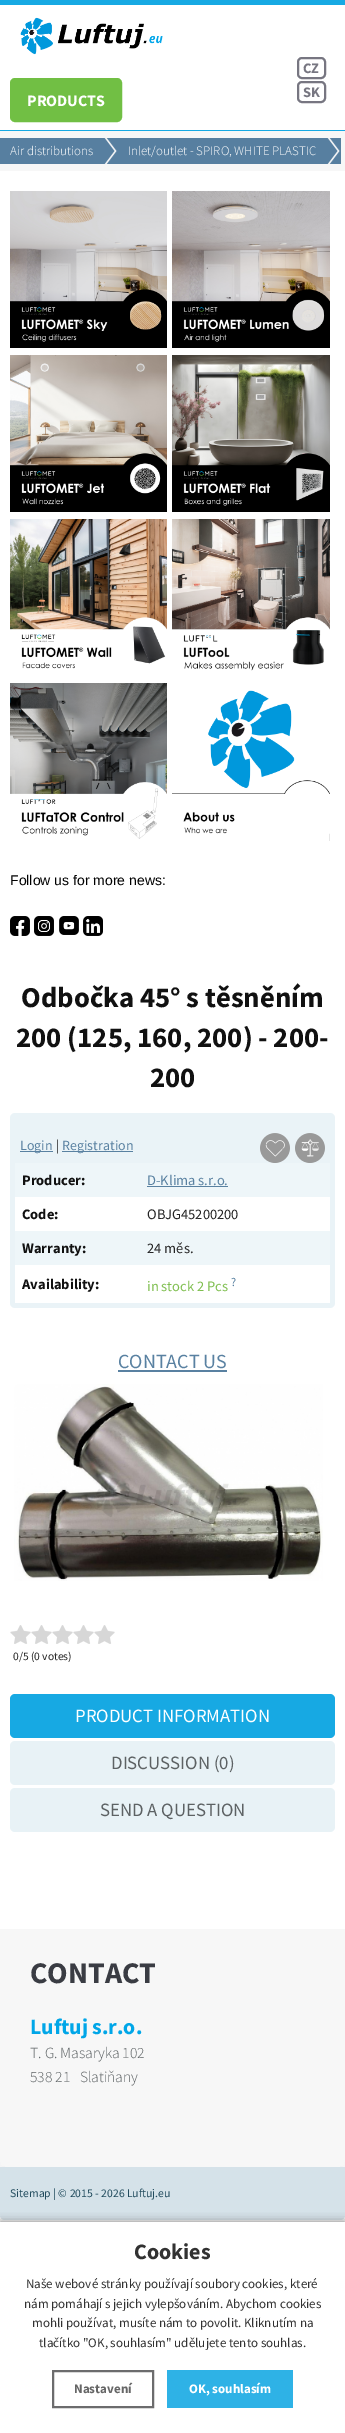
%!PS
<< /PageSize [345 2433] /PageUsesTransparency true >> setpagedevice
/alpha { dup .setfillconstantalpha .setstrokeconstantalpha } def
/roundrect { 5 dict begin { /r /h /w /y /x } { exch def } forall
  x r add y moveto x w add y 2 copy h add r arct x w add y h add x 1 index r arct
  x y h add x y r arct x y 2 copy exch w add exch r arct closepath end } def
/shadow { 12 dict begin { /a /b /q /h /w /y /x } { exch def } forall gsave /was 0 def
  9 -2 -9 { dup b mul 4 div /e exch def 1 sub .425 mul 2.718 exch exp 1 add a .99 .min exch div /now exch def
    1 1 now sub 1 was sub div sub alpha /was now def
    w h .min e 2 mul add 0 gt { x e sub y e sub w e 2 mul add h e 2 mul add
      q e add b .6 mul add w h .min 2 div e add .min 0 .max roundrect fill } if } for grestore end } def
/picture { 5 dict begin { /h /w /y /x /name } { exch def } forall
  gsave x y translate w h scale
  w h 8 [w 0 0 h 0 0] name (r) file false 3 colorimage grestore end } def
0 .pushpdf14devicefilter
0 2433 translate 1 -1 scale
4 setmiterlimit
1 setgray
0 0 345 2433 rectfill
0.09 0.663 0.89 setrgbcolor
0 0 345 5 rectfill
0 130 345 1 rectfill
(img1.rgb) 20 17 143 38 picture
0.467 0.463 0.506 setrgbcolor
2 setlinewidth
298 58 27 20 4 roundrect stroke
/SourceSansPro-Bold [14.5 0 0 -14.5 0 0] selectfont
303 73 moveto (CZ) show
298 82 27 20 4 roundrect stroke
303 97 moveto (SK) show
0.443 0.749 0.267 setrgbcolor
11 79 110 42 4 roundrect gsave fill grestore
stroke
/SourceSansPro-Bold [16 0 0 -16 0 0] selectfont
1 setgray
27 106 moveto (PRODUCTS) show
0.969 setgray
0 131 345 40 rectfill
(img2.rgb) 0 138 118 26 picture
/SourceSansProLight-Light [13 0 0 -13 0 0] selectfont
1 setgray
10 155 moveto (Air distributions) show
(img3.rgb) 118 138 223 26 picture
128 155 moveto (Inlet/outlet - SPIRO, WHITE PLASTIC) show
(img4.rgb) 10 191 157 157 picture
(img5.rgb) 172 191 158 157 picture
(img6.rgb) 10 355 157 157 picture
(img7.rgb) 172 355 158 157 picture
(img8.rgb) 10 519 157 150 picture
(img9.rgb) 172 519 158 152 picture
(img10.rgb) 10 683 157 156 picture
(img11.rgb) 172 690 158 151 picture
/LiberationSans-Regular [14 0 0 -14 0 0] selectfont
0 setgray
10 885 moveto (Follow us for more news:) show
(img12.rgb) 10 916 20 20 picture
(img13.rgb) 34 916 20 20 picture
(img14.rgb) 59 916 20 19 picture
(img15.rgb) 83 916 20 20 picture
/SourceSansPro-Bold [28.75 0 0 -28.75 0 0] selectfont
0.067 setgray
21 1007 moveto (Odbočka 45° s těsněním) show
16 1047 moveto (200 \(125, 160, 200\) - 200-) show
150 1087 moveto (200) show
0.918 0.953 0.969 setrgbcolor
10 1113 325 195 5 roundrect fill
0.349 0.506 0.631 setrgbcolor
20 1151 33 1 rectfill
/SourceSansPro-Regular [14 0 0 -14 0 0] selectfont
20 1150 moveto (Login) show
0.137 setgray
56 1150 moveto (|) show
0.349 0.506 0.631 setrgbcolor
62 1151 71 1 rectfill
62 1150 moveto (Registration) show
(img16.rgb) 260 1133 30 30 picture
(img17.rgb) 295 1133 30 30 picture
0.933 0.965 0.976 setrgbcolor
15 1163 315 34 rectfill
/SourceSansPro-Bold [14.5 0 0 -14.5 0 0] selectfont
0.067 setgray
22 1185 moveto (Producer:) show
/SourceSansPro-Regular [14.5 0 0 -14.5 0 0] selectfont
0.349 0.506 0.631 setrgbcolor
147 1185 moveto (D-Klima s.r.o.) show
147 1186 81 1 rectfill
1 setgray
15 1197 315 34 rectfill
/SourceSansPro-Bold [14.5 0 0 -14.5 0 0] selectfont
0.067 setgray
22 1219 moveto (Code:) show
/SourceSansPro-Regular [14.5 0 0 -14.5 0 0] selectfont
0.137 setgray
147 1219 moveto (OBJG45200200) show
0.933 0.965 0.976 setrgbcolor
15 1231 315 34 rectfill
/SourceSansPro-Bold [14.5 0 0 -14.5 0 0] selectfont
0.067 setgray
22 1253 moveto (Warranty:) show
/SourceSansPro-Regular [14.5 0 0 -14.5 0 0] selectfont
0.137 setgray
147 1253 moveto (24 měs.) show
1 setgray
15 1265 315 38 rectfill
/SourceSansPro-Bold [14.5 0 0 -14.5 0 0] selectfont
0.067 setgray
22 1289 moveto (Availability:) show
/SourceSansPro-Regular [14.5 0 0 -14.5 0 0] selectfont
0.494 0.745 0.306 setrgbcolor
147 1291 moveto (in stock 2 Pcs) show
/SourceSansPro-Regular [12 0 0 -12 0 0] selectfont
0.349 0.506 0.631 setrgbcolor
231 1286 moveto (?) show
/SourceSansPro-Regular [20 0 0 -20 0 0] selectfont
118 1368 moveto (CONTACT US) show
118 1370 109 2 rectfill
(img18.rgb) 14 1384 309 197 picture
(img19.rgb) 10 1625 105 19 picture
/SourceSansPro-Regular [11.5 0 0 -11.5 0 0] selectfont
0.137 setgray
13 1660 moveto (0/5 \(0 votes\)) show
0.09 0.663 0.89 setrgbcolor
10 1694 325 44 5 roundrect fill
/SourceSansPro-Regular [18.75 0 0 -18.75 0 0] selectfont
1 setgray
75 1722 moveto (PRODUCT INFORMATION) show
0.91 0.949 0.965 setrgbcolor
10 1741 325 44 5 roundrect fill
0.365 0.384 0.392 setrgbcolor
111 1769 moveto (DISCUSSION \(0\)) show
0.91 0.949 0.965 setrgbcolor
10 1788 325 44 5 roundrect fill
0.365 0.384 0.392 setrgbcolor
100 1816 moveto (SEND A QUESTION) show
0.969 setgray
0 1929 345 293 rectfill
gsave
newpath 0 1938 moveto 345 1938 lineto 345 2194 lineto 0 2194 lineto closepath 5 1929 moveto 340 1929 lineto 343 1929 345 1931 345 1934 curveto 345 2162 lineto 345 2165 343 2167 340 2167 curveto 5 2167 lineto 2 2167 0 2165 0 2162 curveto 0 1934 lineto 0 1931 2 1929 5 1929 curveto closepath eoclip newpath
0.718 0.776 0.796 setrgbcolor
16 1963 313 206 0 8 1 shadow
grestore
/SourceSansPro-Bold [30 0 0 -30 0 0] selectfont
0.227 0.235 0.263 setrgbcolor
30 1983 moveto (CONTACT) show
/SourceSansPro-Bold [21.75 0 0 -21.75 0 0] selectfont
0 0.651 0.91 setrgbcolor
30 2034 moveto (Luftuj s.r.o.) show
/SourceSansProLight-Light [15.5 0 0 -15.5 0 0] selectfont
0.365 0.384 0.392 setrgbcolor
30 2058 moveto (T. G. Masaryka 102) show
30 2082 moveto (538 21   Slatiňany) show
0.835 0.886 0.914 setrgbcolor
newpath 0 2167 moveto 345 2167 lineto 345 2215 lineto 345 2218 343 2220 340 2220 curveto 5 2220 lineto 2 2220 0 2218 0 2215 curveto closepath fill
/SourceSansPro-Regular [11.7 0 0 -11.7 0 0] selectfont
0.129 0.294 0.365 setrgbcolor
10 2197 moveto (Sitemap | © 2015 - 2026 Luftuj.eu) show
gsave
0 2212 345 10 rectclip
0.467 setgray
0 2222 345 211 0 5 0.9 shadow
grestore
/SourceSansPro-Bold [22 0 0 -22 0 0] selectfont
0.196 setgray
134 2259 moveto (Cookies) show
/SourceSansPro-Regular [13 0 0 -13 0 0] selectfont
26 2288 moveto (Naše webové stránky používají soubory cookies, které) show
24 2308 moveto (nám pomáhají s jejich vylepšováním. Abychom cookies) show
32 2327 moveto (mohli používat, musíte nám to povolit. Kliknutím na) show
39 2347 moveto (tlačítko "OK, souhlasím" udělujete tento souhlas.) show
0.424 0.424 0.427 setrgbcolor
53 2371 100 36 rectstroke
/SourceSansPro-Bold [13 0 0 -13 0 0] selectfont
0.4 setgray
74 2393 moveto (Nastavení) show
0.18 0.698 0.902 setrgbcolor
167 2370 126 38 rectfill
1 setgray
189 2393 moveto (OK, souhlasím) show
.poppdf14devicefilter showpage
